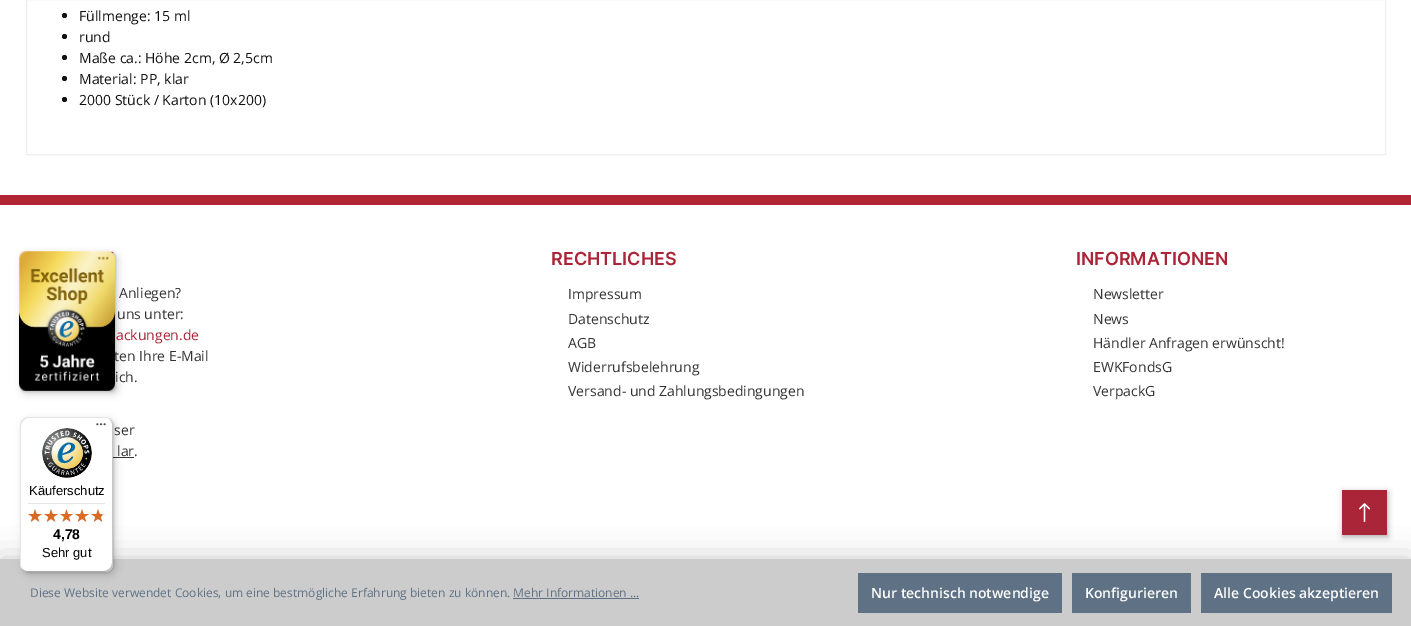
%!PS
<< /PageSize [1411 626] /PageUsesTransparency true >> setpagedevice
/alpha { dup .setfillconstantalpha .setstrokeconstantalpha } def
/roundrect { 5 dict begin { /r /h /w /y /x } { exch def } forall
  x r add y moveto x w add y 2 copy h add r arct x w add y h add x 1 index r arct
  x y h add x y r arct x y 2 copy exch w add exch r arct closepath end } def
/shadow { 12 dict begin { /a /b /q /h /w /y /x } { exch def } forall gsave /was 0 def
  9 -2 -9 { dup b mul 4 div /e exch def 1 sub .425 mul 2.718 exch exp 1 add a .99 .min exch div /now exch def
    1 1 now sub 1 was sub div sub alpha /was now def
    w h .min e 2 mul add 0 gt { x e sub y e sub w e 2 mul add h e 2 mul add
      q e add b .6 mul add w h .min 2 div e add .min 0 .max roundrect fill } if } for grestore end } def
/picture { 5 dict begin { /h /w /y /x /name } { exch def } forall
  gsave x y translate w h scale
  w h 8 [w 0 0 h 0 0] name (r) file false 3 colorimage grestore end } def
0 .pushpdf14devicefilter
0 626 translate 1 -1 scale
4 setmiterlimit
1 setgray
0 0 1411 626 rectfill
0.933 setgray
26.5 -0.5 1359 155 rectstroke
0.067 setgray
newpath 64.5 15.5 2.5 0 360 arc closepath fill
/OpenSans-Regular [14 0 0 -14 0 0] selectfont
79 21 moveto (Füllmenge: 15 ml) show
newpath 64.5 36.5 2.5 0 360 arc closepath fill
79 42 moveto (rund) show
newpath 64.5 57.5 2.5 0 360 arc closepath fill
79 63 moveto (Maße ca.: Höhe 2cm, Ø 2,5cm) show
newpath 64.5 78.5 2.5 0 360 arc closepath fill
79 84 moveto (Material: PP, klar) show
newpath 64.5 99.5 2.5 0 360 arc closepath fill
79 105 moveto (2000 Stück / Karton \(10x200\)) show
0 setgray
22 254 96 140 5 4 0.15 shadow
20 252 96 140 5 1 0.15 shadow
0.1 alpha
newpath 25 252 moveto 111 252 lineto 113 253 lineto 113 252 111 251 110 251 curveto 24 251 lineto 21 251 19 254 19 258 curveto 19 384 lineto 19 387 20 389 21 390 curveto 21 389 20 387 20 385 curveto 20 259 lineto 20 255 22 252 25 252 curveto closepath fill
1 alpha
0.2 setgray
114 361 moveto (ten Ihre E-Mail) show
0.2 alpha
0 setgray
newpath 21 389 moveto 21 390 23 391 24 391 curveto 110 391 lineto 113 391 115 388 115 384 curveto 115 258 lineto 115 255 114 253 113 252 curveto 113 253 114 255 114 257 curveto 114 383 lineto 114 387 112 390 109 390 curveto 23 390 lineto closepath fill
0.196 setgray
newpath 20 388 moveto 21 390 22 391 24 391 curveto 110 391 lineto 113 391 115 388 115 384 curveto 115 258 lineto 115 255 114 253 112 252 curveto 113 253 114 255 114 257 curveto 114 383 lineto 114 387 112 390 110 390 curveto 23 390 lineto 22 390 21 389 20 388 curveto closepath fill
0.3 alpha
1 setgray
newpath 20 389 moveto 21 390 22 391 24 391 curveto 110 391 lineto 113 391 115 388 115 384 curveto 115 258 lineto 115 255 114 253 112 252 curveto 113 253 114 256 114 258 curveto 114 384 lineto 114 387 112 390 110 390 curveto 23 390 lineto 22 390 21 389 20 389 curveto closepath fill
1 alpha
(img1.rgb) 19 251 96 140 picture
0.698 0.141 0.196 setrgbcolor
0 195 1411 10 rectfill
0.2 setgray
119 298 moveto (Anliegen?) show
117 319 moveto (uns unter:) show
0.671 0.145 0.224 setrgbcolor
116 340 moveto (ackungen.de) show
0.2 setgray
115 382 moveto (ich.) show
114 435 moveto (ser) show
117 456 moveto (lar.) show
113 457 21 1 rectfill
/Inter-SemiBold [18 0 0 -18 0 0] selectfont
0.671 0.145 0.224 setrgbcolor
551 265 moveto (RECHTLICHES) show
/OpenSans-Regular [14 0 0 -14 0 0] selectfont
0.2 setgray
568 299 moveto (Impressum) show
568 324 moveto (Datenschutz) show
568 348 moveto (AGB) show
568 372 moveto (Widerrufsbelehrung) show
568 396 moveto (Versand- und Zahlungsbedingungen) show
/Inter-SemiBold [18 0 0 -18 0 0] selectfont
0.671 0.145 0.224 setrgbcolor
1076 265 moveto (INFORMATIONEN) show
/OpenSans-Regular [14 0 0 -14 0 0] selectfont
0.2 setgray
1093 299 moveto (Newsletter) show
1093 324 moveto (News) show
1093 348 moveto (Händler Anfragen erwünscht!) show
1093 372 moveto (EWKFondsG) show
1093 396 moveto (VerpackG) show
0 setgray
1343 492 45 45 0 3 0.3 shadow
0.671 0.145 0.224 setrgbcolor
1342 490 45 45 rectfill
(img9.rgb) 1359 503 11 19 picture
0 setgray
0 559 1411 67 0 15 0.2 shadow
0.8 setgray
0 559 1411 67 rectfill
0 setgray
23 420 93 155 8 4 0.15 shadow
21 418 93 155 8 1 0.15 shadow
1 setgray
20 417 93 155 8 roundrect fill
0.1 alpha
0 setgray
newpath 29 418 moveto 106 418 lineto 108 418 110 419 112 421 curveto 110 419 108 417 105 417 curveto 28 417 lineto 24 417 20 421 20 425 curveto 20 564 lineto 20 567 22 569 24 571 curveto 22 569 21 567 21 565 curveto 21 426 lineto 21 422 25 418 29 418 curveto closepath fill
0.2 alpha
newpath 21 568 moveto 23 570 25 572 28 572 curveto 105 572 lineto 109 572 113 568 113 564 curveto 113 425 lineto 113 422 111 420 109 418 curveto 111 420 112 422 112 424 curveto 112 563 lineto 112 567 108 571 104 571 curveto 27 571 lineto 25 571 23 570 21 568 curveto closepath fill
0.196 setgray
newpath 22 569 moveto 23 571 26 572 28 572 curveto 105 572 lineto 109 572 113 568 113 564 curveto 113 425 lineto 113 423 112 420 110 419 curveto 111 420 112 422 112 424 curveto 112 563 lineto 112 568 109 571 104 571 curveto 27 571 lineto 25 571 23 570 22 569 curveto closepath fill
0.3 alpha
1 setgray
newpath 104 572 moveto 105 572 lineto 109 572 113 568 113 564 curveto 113 425 lineto 113 423 112 420 110 419 curveto 111 420 112 422 112 424 curveto 112 564 lineto 112 568 109 572 104 572 curveto closepath fill
1 alpha
(img2.rgb) 96 423 10 3 picture
(img3.rgb) 42 428 50 50 picture
/LiberationSans-Regular [13 0 0 -13 0 0] selectfont
0 setgray
29 495 moveto (Käuferschutz) show
0.898 setgray
28 503 77 1 rectfill
(img4.rgb) 28 509 14 13 picture
(img4.rgb) 44 509 14 13 picture
(img5.rgb) 60 509 13 13 picture
(img4.rgb) 75 509 14 13 picture
(img4.rgb) 91 509 14 13 picture
(img6.rgb) 28 509 14 13 picture
(img6.rgb) 44 509 14 13 picture
(img7.rgb) 60 509 13 13 picture
(img6.rgb) 75 509 14 13 picture
(img8.rgb) 91 509 11 13 picture
/LiberationSans-Bold [14 0 0 -14 0 0] selectfont
0 setgray
53 539 moveto (4,78) show
/LiberationSans-Regular [13 0 0 -13 0 0] selectfont
42 557 moveto (Sehr gut) show
/OpenSans-Regular [12 0 0 -12 0 0] selectfont
0.373 0.447 0.522 setrgbcolor
30 597 moveto (Diese Website verwendet Cookies, um eine bestmögliche Erfahrung bieten zu können. Mehr Informationen ...) show
513 598 126 1 rectfill
858 573 204 40 rectfill
/OpenSans-SemiBold [14 0 0 -14 0 0] selectfont
1 setgray
871 598 moveto (Nur technisch notwendige) show
0.373 0.447 0.522 setrgbcolor
1072 573 119 40 rectfill
1 setgray
1085 598 moveto (Konfigurieren) show
0.373 0.447 0.522 setrgbcolor
1201 573 191 40 rectfill
1 setgray
1214 598 moveto (Alle Cookies akzeptieren) show
.poppdf14devicefilter showpage
